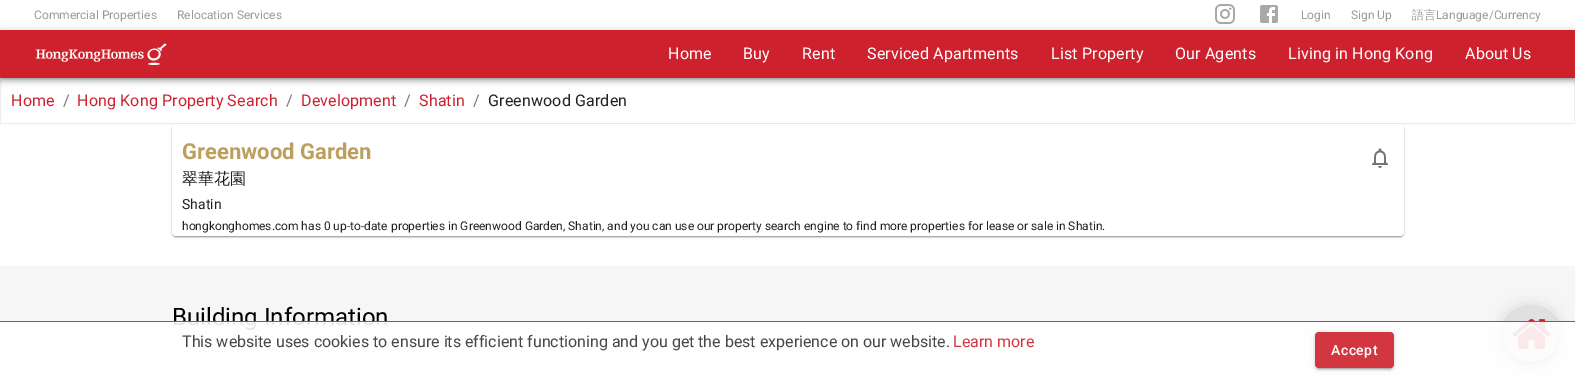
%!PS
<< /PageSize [1575 378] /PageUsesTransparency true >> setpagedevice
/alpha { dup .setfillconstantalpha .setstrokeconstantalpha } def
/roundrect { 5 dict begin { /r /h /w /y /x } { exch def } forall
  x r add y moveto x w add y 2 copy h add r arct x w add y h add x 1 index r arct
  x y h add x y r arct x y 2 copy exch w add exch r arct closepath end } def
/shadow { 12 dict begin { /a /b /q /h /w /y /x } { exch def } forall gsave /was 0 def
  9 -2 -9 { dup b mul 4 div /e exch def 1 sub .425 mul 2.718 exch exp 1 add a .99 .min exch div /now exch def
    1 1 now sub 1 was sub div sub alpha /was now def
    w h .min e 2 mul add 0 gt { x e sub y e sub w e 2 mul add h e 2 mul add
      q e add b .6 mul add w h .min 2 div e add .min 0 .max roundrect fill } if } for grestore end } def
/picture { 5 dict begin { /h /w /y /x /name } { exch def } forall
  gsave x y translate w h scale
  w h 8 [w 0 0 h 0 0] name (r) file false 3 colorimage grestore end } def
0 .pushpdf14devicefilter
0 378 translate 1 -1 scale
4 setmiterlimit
1 setgray
0 0 1575 378 rectfill
/Roboto-Regular [12 0 0 -12 0 0] selectfont
0.6 setgray
34 19 moveto (Commercial Properties) show
177 19 moveto (Relocation Services) show
(img1.rgb) 1215 4 20 20 picture
(img2.rgb) 1260 5 18 18 picture
1301 19 moveto (Login) show
1351 19 moveto (Sign Up) show
/WenQuanYiZenHei-Medium [12 0 0 -12 0 0] selectfont
1412 19 moveto (語言) show
/Roboto-Regular [12 0 0 -12 0 0] selectfont
1436 19 moveto (Language/Currency) show
0.933 setgray
0.5 78.5 1574 45 rectstroke
0 setgray
0 31 1575 48 0 5 0.12 shadow
0 34 1575 48 0 2.5 0.14 shadow
1 33 1573 46 0 2 0.2 shadow
0.804 0.129 0.176 setrgbcolor
0 30 1575 48 rectfill
(img3.rgb) 35 43 132 23 picture
/Roboto-Regular [16 0 0 -16 0 0] selectfont
1 setgray
668 59 moveto 0.15 0 (Home) ashow
743 59 moveto 0.15 0 (Buy) ashow
802 59 moveto 0.15 0 (Rent) ashow
867 59 moveto 0.15 0 (Serviced Apartments) ashow
1051 59 moveto 0.15 0 (List Property) ashow
1175 59 moveto 0.15 0 (Our Agents) ashow
1288 59 moveto 0.15 0 (Living in Hong Kong) ashow
1465 59 moveto 0.15 0 (About Us) ashow
0.804 0.129 0.176 setrgbcolor
11 106 moveto 0.15 0 (Home) ashow
0.459 setgray
63 106 moveto 0.15 0 (/) ashow
0.804 0.129 0.176 setrgbcolor
77 106 moveto 0.15 0 (Hong Kong Property Search) ashow
0.459 setgray
286 106 moveto 0.15 0 (/) ashow
0.804 0.129 0.176 setrgbcolor
301 106 moveto 0.15 0 (Development) ashow
0.459 setgray
404 106 moveto 0.15 0 (/) ashow
0.804 0.129 0.176 setrgbcolor
419 106 moveto 0.15 0 (Shatin) ashow
0.459 setgray
473 106 moveto 0.15 0 (/) ashow
0.129 setgray
488 106 moveto 0.15 0 (Greenwood Garden) ashow
0.965 setgray
0 266 1575 112 rectfill
0 setgray
1503 307 56 56 28 9 0.12 shadow
1503 312 56 56 28 5 0.14 shadow
1504 310 54 54 27 2.5 0.2 shadow
0.878 setgray
newpath 1531 334 28 0 360 arc closepath fill
(img4.rgb) 1513 319 37 30 picture
0 setgray
172 125 1232 112 4 1.5 0.12 shadow
172 125 1232 112 4 0.5 0.14 shadow
173 127 1230 110 3 0.5 0.2 shadow
1 setgray
172 124 1232 112 4 roundrect fill
/Roboto-Bold [22 0 0 -22 0 0] selectfont
0.737 0.624 0.365 setrgbcolor
182 159 moveto (Greenwood Garden) show
(img5.rgb) 1372 148 16 20 picture
/WenQuanYiZenHei-Medium [16 0 0 -16 0 0] selectfont
0.129 setgray
182 184 moveto (翠華花園) show
/Roboto-Regular [14 0 0 -14 0 0] selectfont
182 209 moveto (Shatin) show
/Roboto-Regular [12 0 0 -12 0 0] selectfont
182 230 moveto (hongkonghomes.com has 0 up-to-date properties in Greenwood Garden, Shatin, and you can use our property search engine to find more properties for lease or sale in Shatin.) show
/Roboto-Regular [24 0 0 -24 0 0] selectfont
0 setgray
172 325 moveto (Building Information) show
0.9 alpha
1 setgray
0 321 1575 57 rectfill
0.804 0.129 0.176 setrgbcolor
0 321 1575 1 rectfill
/Roboto-Regular [16 0 0 -16 0 0] selectfont
1 alpha
0.278 setgray
182 347 moveto (This website uses cookies to ensure its efficient functioning and you get the best experience on our website.) show
0.82 0.212 0.255 setrgbcolor
953 347 moveto (Learn more) show
0.098 setgray
1315 333 79 36 4 2.5 0.12 shadow
1315 334 79 36 4 1 0.14 shadow
1317 337 75 32 2 0.5 0.2 shadow
0.82 0.212 0.255 setrgbcolor
1315 332 79 36 4 roundrect fill
/Roboto-Medium [14 0 0 -14 0 0] selectfont
1 setgray
1331 355 moveto 0.5 0 (Accept) ashow
.poppdf14devicefilter showpage
